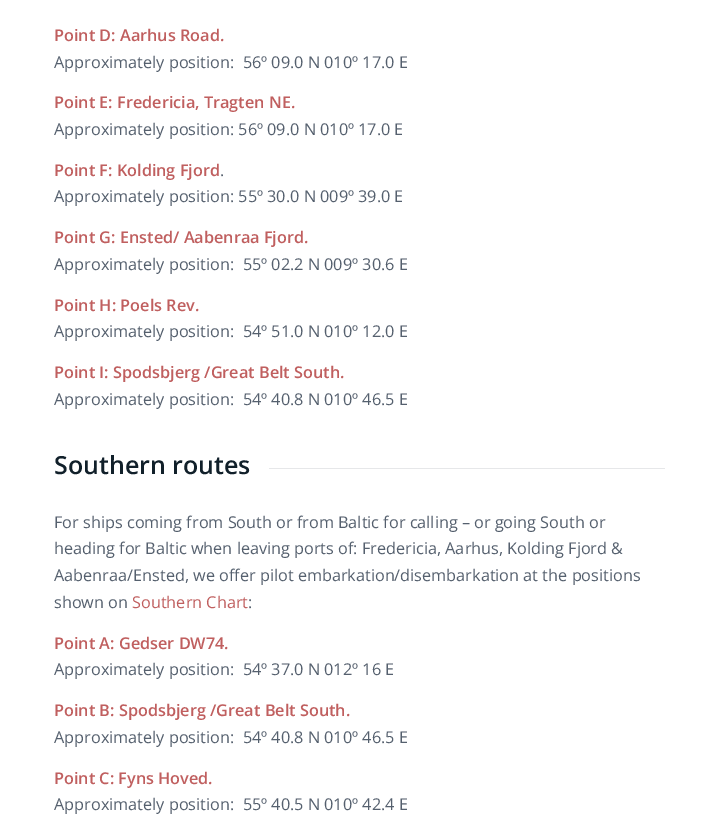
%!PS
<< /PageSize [718 834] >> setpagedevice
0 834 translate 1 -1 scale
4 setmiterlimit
1 setgray
0 0 718 834 rectfill
/OpenSans-SemiBold [16.25 0 0 -16.25 0 0] selectfont
0.753 0.373 0.373 setrgbcolor
54 41 moveto (Point D: Aarhus Road.) show
/OpenSans-Regular [16.25 0 0 -16.25 0 0] selectfont
0.333 0.376 0.431 setrgbcolor
54 68 moveto (Approximately position:  56º 09.0 N 010º 17.0 E) show
/OpenSans-SemiBold [16.25 0 0 -16.25 0 0] selectfont
0.753 0.373 0.373 setrgbcolor
54 108 moveto (Point E: Fredericia, Tragten NE.) show
/OpenSans-Regular [16.25 0 0 -16.25 0 0] selectfont
0.333 0.376 0.431 setrgbcolor
54 135 moveto (Approximately position: 56º 09.0 N 010º 17.0 E) show
/OpenSans-SemiBold [16.25 0 0 -16.25 0 0] selectfont
0.753 0.373 0.373 setrgbcolor
54 176 moveto (Point F: Kolding Fjord) show
/OpenSans-Regular [16.25 0 0 -16.25 0 0] selectfont
0.333 0.376 0.431 setrgbcolor
220 176 moveto (.) show
54 202 moveto (Approximately position: 55º 30.0 N 009º 39.0 E) show
/OpenSans-SemiBold [16.25 0 0 -16.25 0 0] selectfont
0.753 0.373 0.373 setrgbcolor
54 243 moveto (Point G: Ensted/ Aabenraa Fjord.) show
/OpenSans-Regular [16.25 0 0 -16.25 0 0] selectfont
0.333 0.376 0.431 setrgbcolor
54 270 moveto (Approximately position:  55º 02.2 N 009º 30.6 E) show
/OpenSans-SemiBold [16.25 0 0 -16.25 0 0] selectfont
0.753 0.373 0.373 setrgbcolor
54 311 moveto (Point H: Poels Rev.) show
/OpenSans-Regular [16.25 0 0 -16.25 0 0] selectfont
0.333 0.376 0.431 setrgbcolor
54 337 moveto (Approximately position:  54º 51.0 N 010º 12.0 E) show
/OpenSans-SemiBold [16.25 0 0 -16.25 0 0] selectfont
0.753 0.373 0.373 setrgbcolor
54 378 moveto (Point I: Spodsbjerg /Great Belt South.) show
/OpenSans-Regular [16.25 0 0 -16.25 0 0] selectfont
0.333 0.376 0.431 setrgbcolor
54 405 moveto (Approximately position:  54º 40.8 N 010º 46.5 E) show
/OpenSans-SemiBold [25 0 0 -25 0 0] selectfont
0.067 0.125 0.165 setrgbcolor
54 474 moveto (Southern routes) show
0.902 0.906 0.914 setrgbcolor
269 468 396 1 rectfill
/OpenSans-Regular [16.25 0 0 -16.25 0 0] selectfont
0.333 0.376 0.431 setrgbcolor
54 528 moveto (For ships coming from South or from Baltic for calling – or going South or) show
54 554 moveto (heading for Baltic when leaving ports of: Fredericia, Aarhus, Kolding Fjord &) show
54 581 moveto (Aabenraa/Ensted, we offer pilot embarkation/disembarkation at the positions) show
54 608 moveto (shown on) show
0.753 0.373 0.373 setrgbcolor
132 608 moveto (Southern Chart) show
0.333 0.376 0.431 setrgbcolor
248 608 moveto (:) show
/OpenSans-SemiBold [16.25 0 0 -16.25 0 0] selectfont
0.753 0.373 0.373 setrgbcolor
54 649 moveto (Point A: Gedser DW74.) show
/OpenSans-Regular [16.25 0 0 -16.25 0 0] selectfont
0.333 0.376 0.431 setrgbcolor
54 675 moveto (Approximately position:  54º 37.0 N 012º 16 E) show
/OpenSans-SemiBold [16.25 0 0 -16.25 0 0] selectfont
0.753 0.373 0.373 setrgbcolor
54 716 moveto (Point B: Spodsbjerg /Great Belt South.) show
/OpenSans-Regular [16.25 0 0 -16.25 0 0] selectfont
0.333 0.376 0.431 setrgbcolor
54 743 moveto (Approximately position:  54º 40.8 N 010º 46.5 E) show
/OpenSans-SemiBold [16.25 0 0 -16.25 0 0] selectfont
0.753 0.373 0.373 setrgbcolor
54 784 moveto (Point C: Fyns Hoved.) show
/OpenSans-Regular [16.25 0 0 -16.25 0 0] selectfont
0.333 0.376 0.431 setrgbcolor
54 810 moveto (Approximately position:  55º 40.5 N 010º 42.4 E) show
showpage
